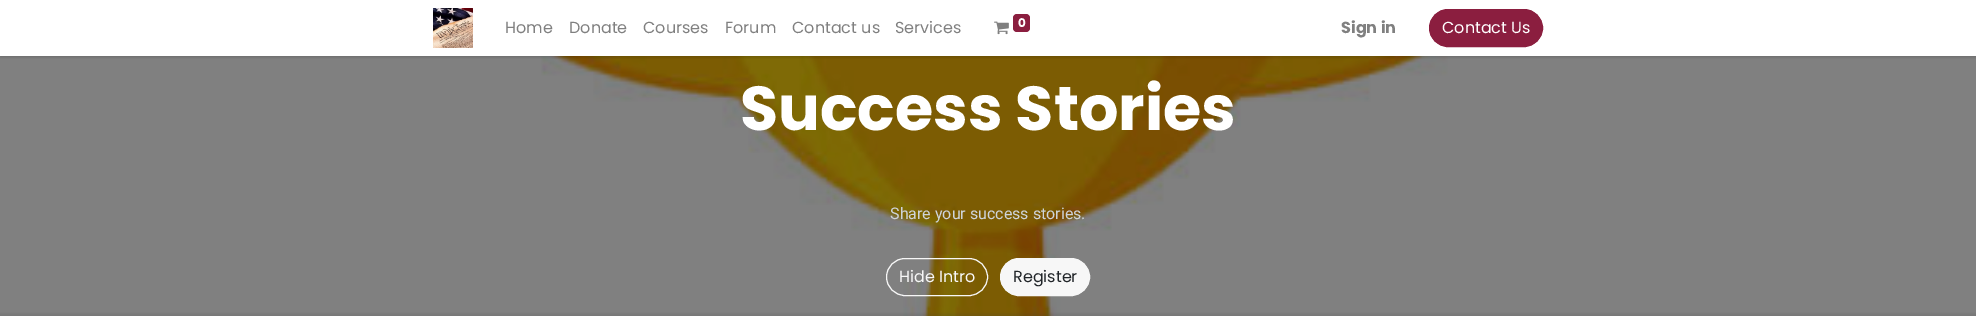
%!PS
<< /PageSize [1976 316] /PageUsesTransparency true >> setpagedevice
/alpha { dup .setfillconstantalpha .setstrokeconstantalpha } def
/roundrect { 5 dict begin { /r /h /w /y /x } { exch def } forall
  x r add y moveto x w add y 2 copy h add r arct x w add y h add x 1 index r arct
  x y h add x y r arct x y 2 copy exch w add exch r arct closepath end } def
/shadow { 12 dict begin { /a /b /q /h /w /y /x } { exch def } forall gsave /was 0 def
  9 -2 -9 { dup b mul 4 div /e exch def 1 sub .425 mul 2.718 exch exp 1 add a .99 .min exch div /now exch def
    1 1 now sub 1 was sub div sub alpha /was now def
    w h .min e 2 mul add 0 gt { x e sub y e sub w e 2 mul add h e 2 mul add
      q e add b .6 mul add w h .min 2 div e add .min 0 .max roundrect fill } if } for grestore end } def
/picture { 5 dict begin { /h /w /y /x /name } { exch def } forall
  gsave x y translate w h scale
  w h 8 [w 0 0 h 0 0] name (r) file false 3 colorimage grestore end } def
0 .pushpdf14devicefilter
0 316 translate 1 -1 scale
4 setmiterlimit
1 setgray
0 0 1976 316 rectfill
(img3.rgb) 0 56 1976 260 picture
gsave
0 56 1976 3 rectclip
0 setgray
0 0 1976 56 0 2.5 0.25 shadow
grestore
(img1.rgb) 433 8 40 40 picture
/Poppins-Regular [16 0 0 -16 0 0] selectfont
0.502 setgray
505 33 moveto (Home) show
569 33 moveto (Donate) show
643 33 moveto (Courses) show
725 33 moveto (Forum) show
792 33 moveto (Contact us) show
895 33 moveto (Services) show
(img2.rgb) 994 21 15 14 picture
0.545 0.118 0.247 setrgbcolor
1013 14 17 18 4 roundrect fill
/Poppins-Bold [12 0 0 -12 0 0] selectfont
1 setgray
1018 27 moveto (0) show
/Poppins-Bold [16 0 0 -16 0 0] selectfont
0.502 setgray
1341 33 moveto (Sign in) show
0.545 0.118 0.247 setrgbcolor
1429.5 9.5 113 37 18.5 roundrect gsave fill grestore
stroke
/Poppins-Regular [16 0 0 -16 0 0] selectfont
1 setgray
1442 33 moveto (Contact Us) show
/Poppins-Bold [62 0 0 -62 0 0] selectfont
740 130 moveto (Success Stories) show
/Roboto-Regular [16 0 0 -16 0 0] selectfont
0.808 0.831 0.855 setrgbcolor
890 219 moveto (Share your success stories.) show
0.969 setgray
886.5 258.5 101 37 18.5 roundrect stroke
/Poppins-Regular [16 0 0 -16 0 0] selectfont
899 282 moveto (Hide Intro) show
1000.5 258.5 89 37 18.5 roundrect gsave fill grestore
stroke
0.129 0.145 0.161 setrgbcolor
1013 282 moveto (Register) show
.poppdf14devicefilter showpage
